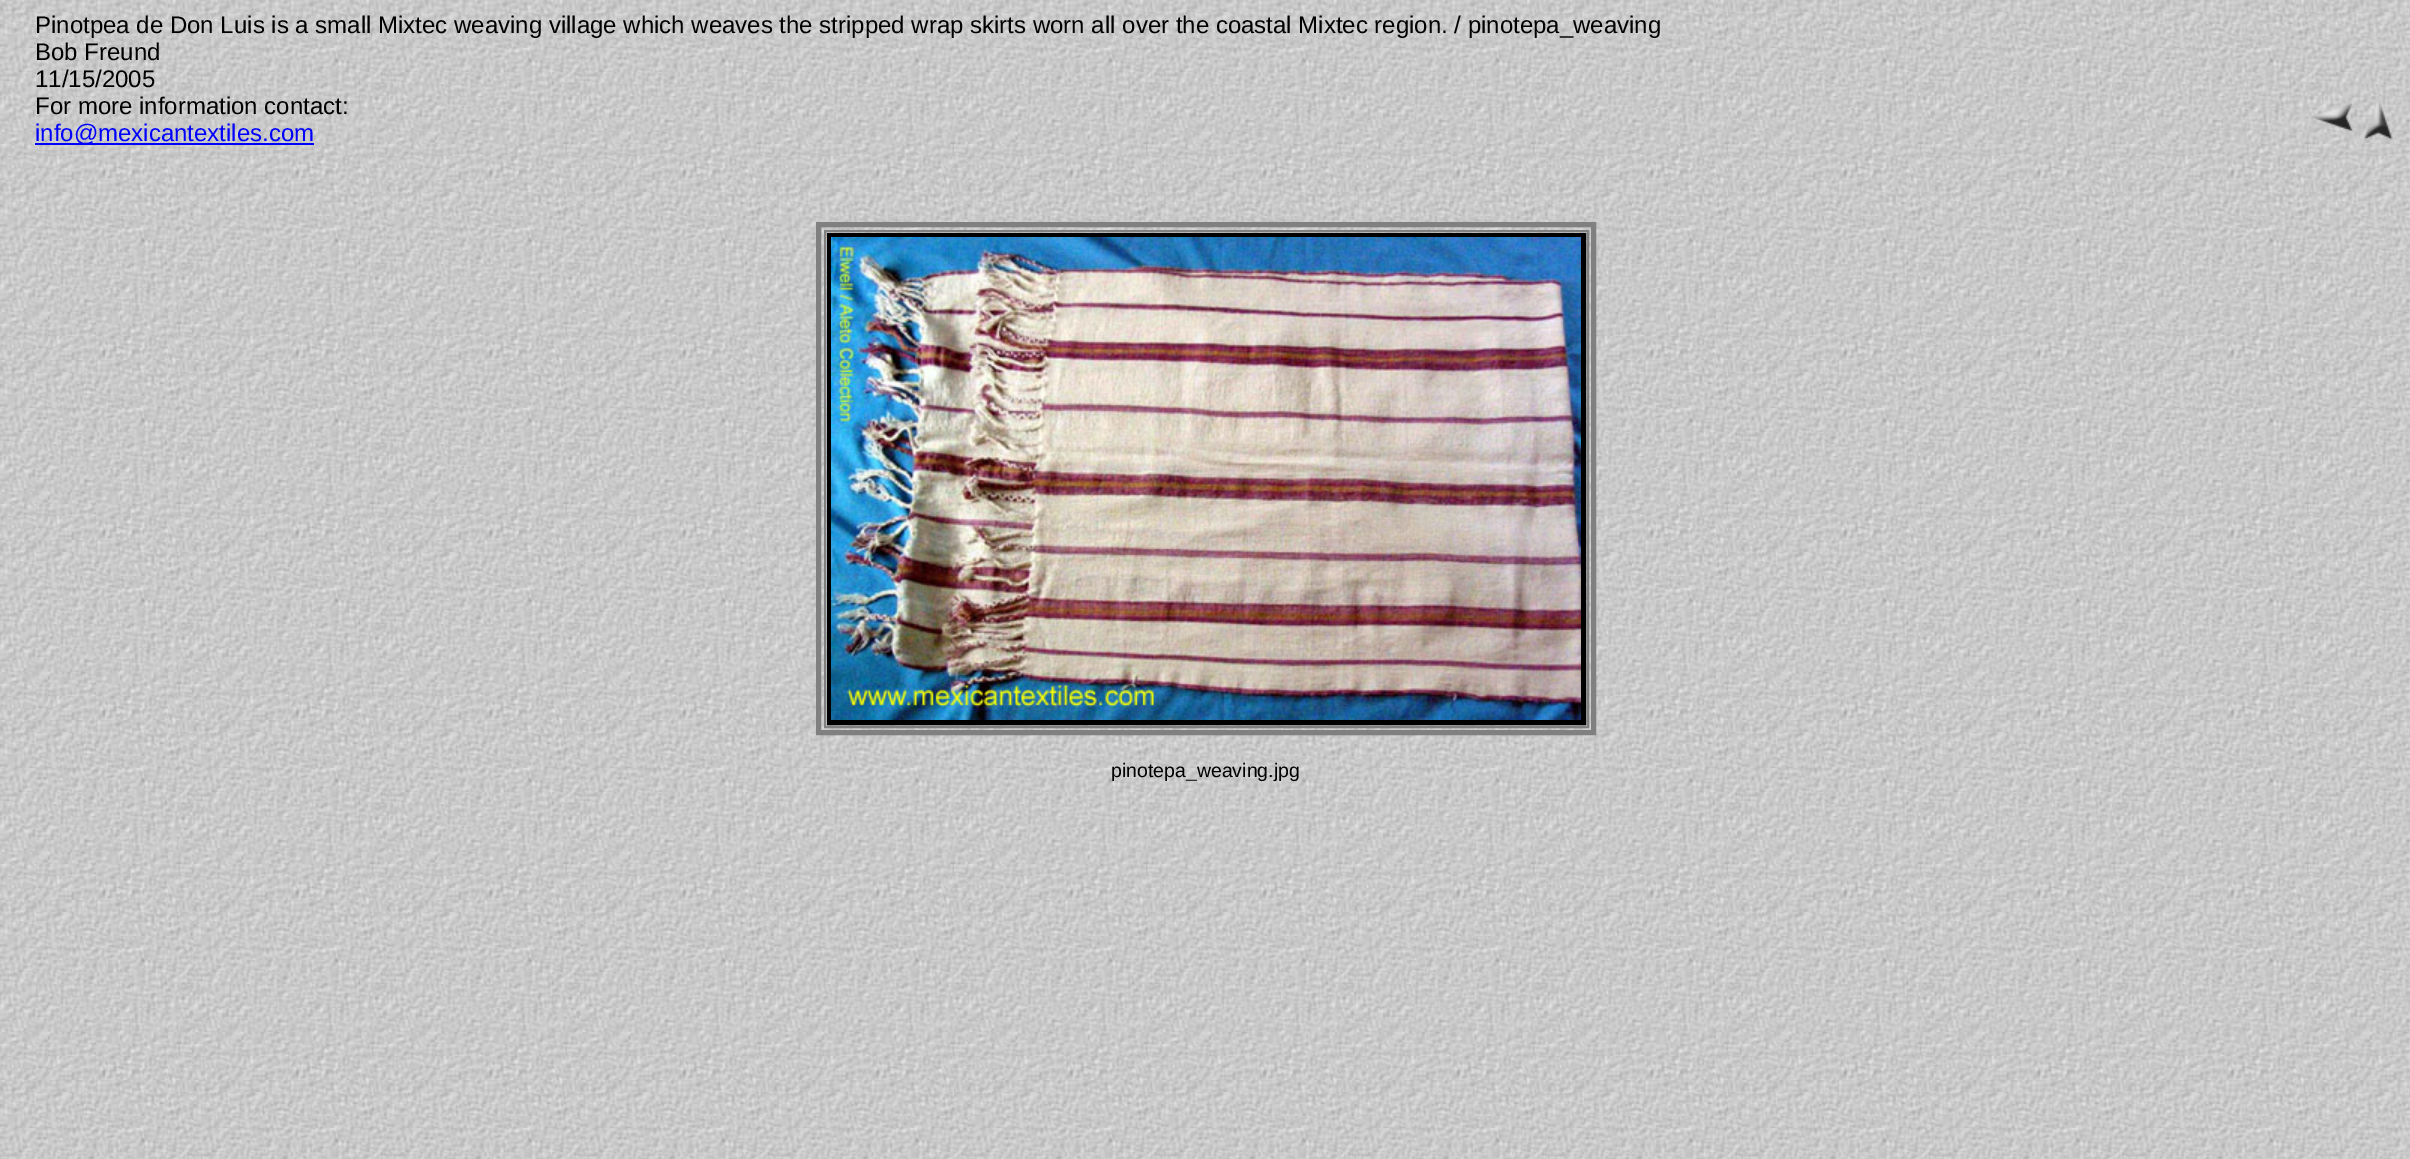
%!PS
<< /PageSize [2410 1159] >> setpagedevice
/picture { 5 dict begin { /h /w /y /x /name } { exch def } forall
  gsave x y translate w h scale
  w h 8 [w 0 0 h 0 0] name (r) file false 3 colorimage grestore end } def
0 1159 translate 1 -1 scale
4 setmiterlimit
1 setgray
0 0 2410 1159 rectfill
(img1.rgb) 0 0 2410 1159 picture
/LiberationSans-Regular [24 0 0 -24 0 0] selectfont
0 setgray
35 33 moveto (Pinotpea de Don Luis is a small Mixtec weaving village which weaves the stripped wrap skirts worn all over the coastal Mixtec region. / pinotepa_weaving) show
35 60 moveto (Bob Freund) show
35 87 moveto (11/15/2005) show
35 114 moveto (For more information contact:) show
0 0 1 setrgbcolor
35 143 279 2 rectfill
35 141 moveto (info@mexicantextiles.com) show
(img2.rgb) 2311 103 42 28 picture
(img3.rgb) 2363 97 30 43 picture
0.502 setgray
5 setlinewidth
818.5 224.5 775 508 rectstroke
2 setlinewidth
825 231 763 496 rectstroke
0 setgray
5 setlinewidth
829.5 235.5 754 487 rectstroke
(img4.rgb) 831 237 750 483 picture
/LiberationSans-Regular [19.5 0 0 -19.5 0 0] selectfont
1111 777 moveto (pinotepa_weaving.jpg) show
showpage
